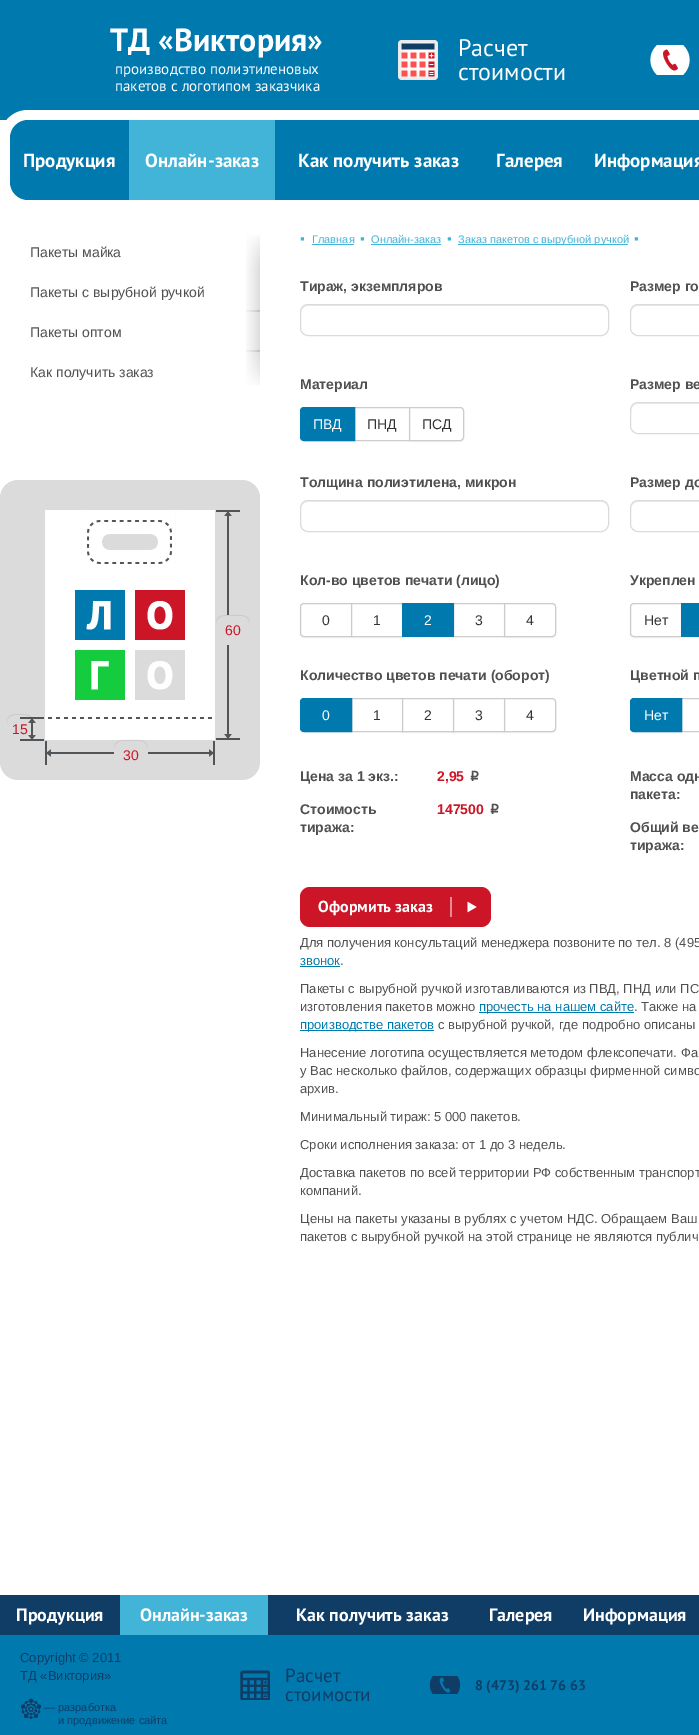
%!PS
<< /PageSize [699 1735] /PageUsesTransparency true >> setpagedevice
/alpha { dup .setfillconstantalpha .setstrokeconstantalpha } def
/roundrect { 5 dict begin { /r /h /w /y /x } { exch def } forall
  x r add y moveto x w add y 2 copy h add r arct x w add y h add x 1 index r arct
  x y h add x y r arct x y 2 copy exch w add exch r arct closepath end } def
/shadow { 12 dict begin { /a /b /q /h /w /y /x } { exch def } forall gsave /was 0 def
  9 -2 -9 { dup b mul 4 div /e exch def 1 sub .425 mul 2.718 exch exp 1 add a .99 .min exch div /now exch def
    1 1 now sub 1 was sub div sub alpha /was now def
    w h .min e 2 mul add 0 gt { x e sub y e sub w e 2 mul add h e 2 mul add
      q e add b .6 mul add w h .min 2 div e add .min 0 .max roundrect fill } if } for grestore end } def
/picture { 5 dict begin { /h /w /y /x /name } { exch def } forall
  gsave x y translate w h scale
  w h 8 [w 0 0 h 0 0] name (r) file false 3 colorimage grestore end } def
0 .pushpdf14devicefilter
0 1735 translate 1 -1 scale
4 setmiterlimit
1 setgray
0 0 699 1735 rectfill
0 0.475 0.686 setrgbcolor
0 0 699 120 rectfill
/PTSans-Bold [32 0 0 -32 0 0] selectfont
1 setgray
110 51 moveto (ТД «Виктория») show
/PTSans-Regular [15 0 0 -15 0 0] selectfont
115 74 moveto (производство полиэтиленовых) show
115 91 moveto (пакетов с логотипом заказчика) show
(img1.rgb) 398 40 40 40 picture
/PTSans-Regular [24 0 0 -24 0 0] selectfont
458 56 moveto (Расчет) show
458 80 moveto (стоимости) show
(img2.rgb) 650 45 40 30 picture
0 110 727 100 28 roundrect fill
0 0.475 0.686 setrgbcolor
10 120 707 80 18 roundrect fill
/PTSans-Bold [19 0 0 -19 0 0] selectfont
1 setgray
23 167 moveto (Продукция) show
0.255 0.706 0.847 setrgbcolor
129 120 146 80 rectfill
1 setgray
145 167 moveto (Онлайн-заказ) show
298 167 moveto (Как получить заказ) show
496 167 moveto (Галерея) show
594 167 moveto (Информация) show
(img3.rgb) 246 235 14 35 picture
/LiberationSans-Regular [14 0 0 -14 0 0] selectfont
0.314 setgray
30 257 moveto (Пакеты майка) show
(img4.rgb) 246 270 14 42 picture
30 297 moveto (Пакеты с вырубной ручкой) show
(img5.rgb) 246 310 14 42 picture
30 337 moveto (Пакеты оптом) show
(img6.rgb) 246 350 14 35 picture
30 377 moveto (Как получить заказ) show
0.859 setgray
0 480 260 300 18 roundrect fill
(img7.rgb) 45 510 170 230 picture
(img8.rgb) 87 520 85 44 picture
0 0.475 0.686 setrgbcolor
75 590 50 50 rectfill
(img9.rgb) 86 601 25 29 picture
0.8 0.082 0.149 setrgbcolor
135 590 50 50 rectfill
(img10.rgb) 147 601 26 29 picture
0.082 0.8 0.247 setrgbcolor
75 650 50 50 rectfill
(img11.rgb) 91 661 18 29 picture
0.859 setgray
135 650 50 50 rectfill
(img12.rgb) 147 661 26 29 picture
0.318 0.333 0.345 setrgbcolor
216 510 24 2 rectfill
216 738 24 2 rectfill
(img13.rgb) 224 512 8 4 picture
227 516 2 218 rectfill
0.859 setgray
216 615 34 30 8 roundrect fill
0.07 alpha
0 setgray
newpath 224 616 moveto 242 616 lineto 246 616 250 620 250 624 curveto 250 613.5 240.5 615 233 615 curveto 225.5 615 216 613.5 216 624 curveto 216 620 220 616 224 616 curveto closepath fill
1 alpha
0.8 0.082 0.149 setrgbcolor
225 635 moveto (60) show
(img14.rgb) 224 734 8 4 picture
(img15.rgb) 48 717 164 2 picture
0.318 0.333 0.345 setrgbcolor
20 717 24 2 rectfill
20 739 24 2 rectfill
(img13.rgb) 28 719 8 4 picture
31 723 2 12 rectfill
0.07 alpha
0 setgray
newpath 15 715 moveto 21 715 30.5 713 33 720.5 curveto 31.5 713.5 25.5 714 20 714 curveto 11 714 7 714.5 7 724.5 curveto 7 720 8.5 715 15 715 curveto closepath 7 738 moveto 7 735.5 lineto closepath eofill
1 alpha
0.8 0.082 0.149 setrgbcolor
12 734 moveto (15) show
(img14.rgb) 28 735 8 4 picture
0.318 0.333 0.345 setrgbcolor
213 741 2 24 rectfill
45 741 2 24 rectfill
(img16.rgb) 47 749 4 8 picture
51 752 158 2 rectfill
0.859 setgray
114 740 34 30 8 roundrect fill
0.07 alpha
0 setgray
newpath 122 741 moveto 140 741 lineto 144 741 148 745 148 749 curveto 148 738.5 138.5 740 131 740 curveto 123.5 740 114 738.5 114 749 curveto 114 745 118 741 122 741 curveto closepath fill
1 alpha
0.8 0.082 0.149 setrgbcolor
123 760 moveto (30) show
(img17.rgb) 209 749 4 8 picture
/LiberationSans-Regular [13 0 0 -13 0 0] selectfont
0.255 0.706 0.847 setrgbcolor
300 243 moveto (▪) show
/LiberationSans-Regular [11 0 0 -11 0 0] selectfont
312 243 moveto (Главная) show
312 244 42 1 rectfill
/LiberationSans-Regular [13 0 0 -13 0 0] selectfont
360 243 moveto (▪) show
/LiberationSans-Regular [11 0 0 -11 0 0] selectfont
371 243 moveto (Онлайн-заказ) show
371 244 70 1 rectfill
/LiberationSans-Regular [13 0 0 -13 0 0] selectfont
447 243 moveto (▪) show
458 244 170 1 rectfill
/LiberationSans-Regular [11 0 0 -11 0 0] selectfont
458 243 moveto (Заказ пакетов с вырубной ручкой) show
/LiberationSans-Regular [13 0 0 -13 0 0] selectfont
634 243 moveto (▪) show
/LiberationSans-Bold [14 0 0 -14 0 0] selectfont
0.314 setgray
300 291 moveto (Тираж, экземпляров) show
0.925 setgray
newpath 308 306 moveto 601 306 lineto 605 306 608 309 608 313 curveto 608 312 lineto 608 308 605 305 601 305 curveto 308 305 lineto 304 305 301 308 301 312 curveto 301 313 lineto 301 309 304 306 308 306 curveto closepath fill
0.859 setgray
300.5 304.5 308 31 7.5 roundrect stroke
0.314 setgray
630 291 moveto (Размер го) show
0.925 setgray
newpath 638 306 moveto 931 306 lineto 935 306 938 309 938 313 curveto 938 312 lineto 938 308 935 305 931 305 curveto 638 305 lineto 634 305 631 308 631 312 curveto 631 313 lineto 631 309 634 306 638 306 curveto closepath fill
0.859 setgray
630.5 304.5 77 31 7.5 roundrect stroke
0.314 setgray
300 389 moveto (Материал) show
0.8 setgray
354.5 407.5 55 33 rectstroke
0 setgray
300 408 55 34 4 1 0.05 shadow
0 0.475 0.686 setrgbcolor
newpath 304 407.5 moveto 354.5 407.5 lineto 354.5 440.5 lineto 304 440.5 lineto 302 440.5 300.5 439 300.5 437 curveto 300.5 411 lineto 300.5 409 302 407.5 304 407.5 curveto closepath gsave fill grestore
stroke
/LiberationSans-Regular [14 0 0 -14 0 0] selectfont
1 setgray
313 429 moveto (ПВД) show
0.2 setgray
367 429 moveto (ПНД) show
0 setgray
409 408 55 34 4 1 0.05 shadow
1 setgray
newpath 409.5 407.5 moveto 460 407.5 lineto 462 407.5 463.5 409 463.5 411 curveto 463.5 437 lineto 463.5 439 462 440.5 460 440.5 curveto 409.5 440.5 lineto closepath gsave fill grestore
0.8 setgray
stroke
0.2 setgray
422 429 moveto (ПСД) show
/LiberationSans-Bold [14 0 0 -14 0 0] selectfont
0.314 setgray
630 389 moveto (Размер ве) show
0.925 setgray
newpath 638 404 moveto 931 404 lineto 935 404 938 407 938 411 curveto 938 410 lineto 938 406 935 403 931 403 curveto 638 403 lineto 634 403 631 406 631 410 curveto 631 411 lineto 631 407 634 404 638 404 curveto closepath fill
0.859 setgray
630.5 402.5 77 31 7.5 roundrect stroke
0.314 setgray
300 487 moveto (Толщина полиэтилена, микрон) show
0.925 setgray
newpath 308 502 moveto 601 502 lineto 605 502 608 505 608 509 curveto 608 508 lineto 608 504 605 501 601 501 curveto 308 501 lineto 304 501 301 504 301 508 curveto 301 509 lineto 301 505 304 502 308 502 curveto closepath fill
0.859 setgray
300.5 500.5 308 31 7.5 roundrect stroke
0.314 setgray
630 487 moveto (Размер до) show
0.925 setgray
newpath 638 502 moveto 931 502 lineto 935 502 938 505 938 509 curveto 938 508 lineto 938 504 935 501 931 501 curveto 638 501 lineto 634 501 631 504 631 508 curveto 631 509 lineto 631 505 634 502 638 502 curveto closepath fill
0.859 setgray
630.5 500.5 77 31 7.5 roundrect stroke
0.314 setgray
300 585 moveto (Кол-во цветов печати \(лицо\)) show
0 setgray
300 604 52 34 4 1 0.05 shadow
1 setgray
newpath 304 603.5 moveto 351.5 603.5 lineto 351.5 636.5 lineto 304 636.5 lineto 302 636.5 300.5 635 300.5 633 curveto 300.5 607 lineto 300.5 605 302 603.5 304 603.5 curveto closepath gsave fill grestore
0.8 setgray
stroke
/LiberationSans-Regular [14 0 0 -14 0 0] selectfont
0.2 setgray
322 625 moveto (0) show
0 setgray
351 604 52 34 0 1 0.05 shadow
1 setgray
newpath 351.5 603.5 moveto 402.5 603.5 lineto 402.5 636.5 lineto 351.5 636.5 lineto closepath gsave fill grestore
0.8 setgray
stroke
0.2 setgray
373 625 moveto (1) show
0.8 setgray
453.5 603.5 51 33 rectstroke
0 setgray
402 604 52 34 0 1 0.05 shadow
0 0.475 0.686 setrgbcolor
402 603 52 34 rectfill
1 setgray
424 625 moveto (2) show
0.2 setgray
475 625 moveto (3) show
0 setgray
504 604 52 34 4 1 0.05 shadow
1 setgray
newpath 504.5 603.5 moveto 552 603.5 lineto 554 603.5 555.5 605 555.5 607 curveto 555.5 633 lineto 555.5 635 554 636.5 552 636.5 curveto 504.5 636.5 lineto closepath gsave fill grestore
0.8 setgray
stroke
0.2 setgray
526 625 moveto (4) show
/LiberationSans-Bold [14 0 0 -14 0 0] selectfont
0.314 setgray
630 585 moveto (Укреплен) show
0 setgray
630 604 52 34 4 1 0.05 shadow
1 setgray
newpath 634 603.5 moveto 681.5 603.5 lineto 681.5 636.5 lineto 634 636.5 lineto 632 636.5 630.5 635 630.5 633 curveto 630.5 607 lineto 630.5 605 632 603.5 634 603.5 curveto closepath gsave fill grestore
0.8 setgray
stroke
/LiberationSans-Regular [14 0 0 -14 0 0] selectfont
0.2 setgray
644 625 moveto (Нет) show
0 setgray
681 604 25 34 4 1 0.05 shadow
0 0.475 0.686 setrgbcolor
681 603 18 34 rectfill
/LiberationSans-Bold [14 0 0 -14 0 0] selectfont
0.314 setgray
300 680 moveto (Количество цветов печати \(оборот\)) show
0.8 setgray
351.5 698.5 51 33 rectstroke
0 setgray
300 699 52 34 4 1 0.05 shadow
0 0.475 0.686 setrgbcolor
newpath 304 698.5 moveto 351.5 698.5 lineto 351.5 731.5 lineto 304 731.5 lineto 302 731.5 300.5 730 300.5 728 curveto 300.5 702 lineto 300.5 700 302 698.5 304 698.5 curveto closepath gsave fill grestore
stroke
/LiberationSans-Regular [14 0 0 -14 0 0] selectfont
1 setgray
322 720 moveto (0) show
0.2 setgray
373 720 moveto (1) show
0 setgray
402 699 52 34 0 1 0.05 shadow
1 setgray
newpath 402.5 698.5 moveto 453.5 698.5 lineto 453.5 731.5 lineto 402.5 731.5 lineto closepath gsave fill grestore
0.8 setgray
stroke
0.2 setgray
424 720 moveto (2) show
0 setgray
453 699 52 34 0 1 0.05 shadow
1 setgray
newpath 453.5 698.5 moveto 504.5 698.5 lineto 504.5 731.5 lineto 453.5 731.5 lineto closepath gsave fill grestore
0.8 setgray
stroke
0.2 setgray
475 720 moveto (3) show
0 setgray
504 699 52 34 4 1 0.05 shadow
1 setgray
newpath 504.5 698.5 moveto 552 698.5 lineto 554 698.5 555.5 700 555.5 702 curveto 555.5 728 lineto 555.5 730 554 731.5 552 731.5 curveto 504.5 731.5 lineto closepath gsave fill grestore
0.8 setgray
stroke
0.2 setgray
526 720 moveto (4) show
/LiberationSans-Bold [14 0 0 -14 0 0] selectfont
0.314 setgray
630 680 moveto (Цветной п) show
0.8 setgray
681.5 698.5 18 33 rectstroke
0 setgray
630 699 52 34 4 1 0.05 shadow
0 0.475 0.686 setrgbcolor
newpath 634 698.5 moveto 681.5 698.5 lineto 681.5 731.5 lineto 634 731.5 lineto 632 731.5 630.5 730 630.5 728 curveto 630.5 702 lineto 630.5 700 632 698.5 634 698.5 curveto closepath gsave fill grestore
stroke
/LiberationSans-Regular [14 0 0 -14 0 0] selectfont
1 setgray
644 720 moveto (Нет) show
/LiberationSans-Bold [14 0 0 -14 0 0] selectfont
0.314 setgray
300 781 moveto (Цена за 1 экз.:) show
0.8 0.082 0.149 setrgbcolor
437 781 moveto (2,95) show
/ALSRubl-Bold [14 0 0 -14 0 0] selectfont
0.314 setgray
468 781 moveto (p) show
/LiberationSans-Bold [14 0 0 -14 0 0] selectfont
300 814 moveto (Стоимость) show
300 832 moveto (тиража:) show
0.8 0.082 0.149 setrgbcolor
437 814 moveto (147500) show
/ALSRubl-Bold [14 0 0 -14 0 0] selectfont
0.314 setgray
488 814 moveto (p) show
/LiberationSans-Bold [14 0 0 -14 0 0] selectfont
630 781 moveto (Масса одн) show
630 799 moveto (пакета:) show
630 832 moveto (Общий ве) show
630 850 moveto (тиража:) show
0.8 0.082 0.149 setrgbcolor
300 887 191 40 10 roundrect fill
(img18.rgb) 450 897 27 20 picture
/PTSans-Bold [16 0 0 -16 0 0] selectfont
1 setgray
318 912 moveto (Оформить заказ) show
/LiberationSans-Regular [13 0 0 -13 0 0] selectfont
0.314 setgray
300 947 moveto (Для получения консультаций менеджера позвоните по тел. 8 \(495) show
0 0.475 0.686 setrgbcolor
300 965 moveto (звонок) show
300 966 40 1 rectfill
0.314 setgray
340 965 moveto (.) show
300 993 moveto (Пакеты с вырубной ручкой изготавливаются из ПВД, ПНД или ПС) show
300 1011 moveto (изготовления пакетов можно) show
0 0.475 0.686 setrgbcolor
479 1012 155 1 rectfill
479 1011 moveto (прочесть на нашем сайте) show
0.314 setgray
634 1011 moveto (. Также на) show
0 0.475 0.686 setrgbcolor
300 1030 134 1 rectfill
300 1029 moveto (производстве пакетов) show
0.314 setgray
438 1029 moveto (с вырубной ручкой, где подробно описаны) show
300 1057 moveto (Нанесение логотипа осуществляется методом флексопечати. Фа) show
300 1075 moveto (у Вас несколько файлов, содержащих образцы фирменной симво) show
300 1093 moveto (архив.) show
300 1121 moveto (Минимальный тираж: 5 000 пакетов.) show
300 1149 moveto (Сроки исполнения заказа: от 1 до 3 недель.) show
300 1177 moveto (Доставка пакетов по всей территории РФ собственным транспорт) show
300 1195 moveto (компаний.) show
300 1223 moveto (Цены на пакеты указаны в рублях с учетом НДС. Обращаем Ваш) show
300 1241 moveto (пакетов с вырубной ручкой на этой странице не являются публич) show
0.063 0.239 0.4 setrgbcolor
0 1595 699 40 rectfill
/PTSans-Bold [18 0 0 -18 0 0] selectfont
1 setgray
16 1621 moveto (Продукция) show
0.255 0.706 0.847 setrgbcolor
120 1595 148 40 rectfill
1 setgray
140 1621 moveto (Онлайн-заказ) show
296 1621 moveto (Как получить заказ) show
489 1621 moveto (Галерея) show
583 1621 moveto (Информация) show
0 0.475 0.686 setrgbcolor
0 1635 699 100 rectfill
/LiberationSans-Regular [13 0 0 -13 0 0] selectfont
0.063 0.239 0.4 setrgbcolor
20 1662 moveto (Copyright © 2011) show
20 1680 moveto (ТД «Виктория») show
(img19.rgb) 21 1698 21 21 picture
/LiberationSans-Regular [11 0 0 -11 0 0] selectfont
44 1711 moveto (— разработка) show
58 1724 moveto (и продвижение сайта) show
(img20.rgb) 240 1670 30 30 picture
/PTSans-Regular [19 0 0 -19 0 0] selectfont
285 1682 moveto (Расчет) show
285 1701 moveto (стоимости) show
(img21.rgb) 430 1676 30 18 picture
/PTSans-Bold [14 0 0 -14 0 0] selectfont
475 1690 moveto (8 \(473\) 261 76 63) show
.poppdf14devicefilter showpage
